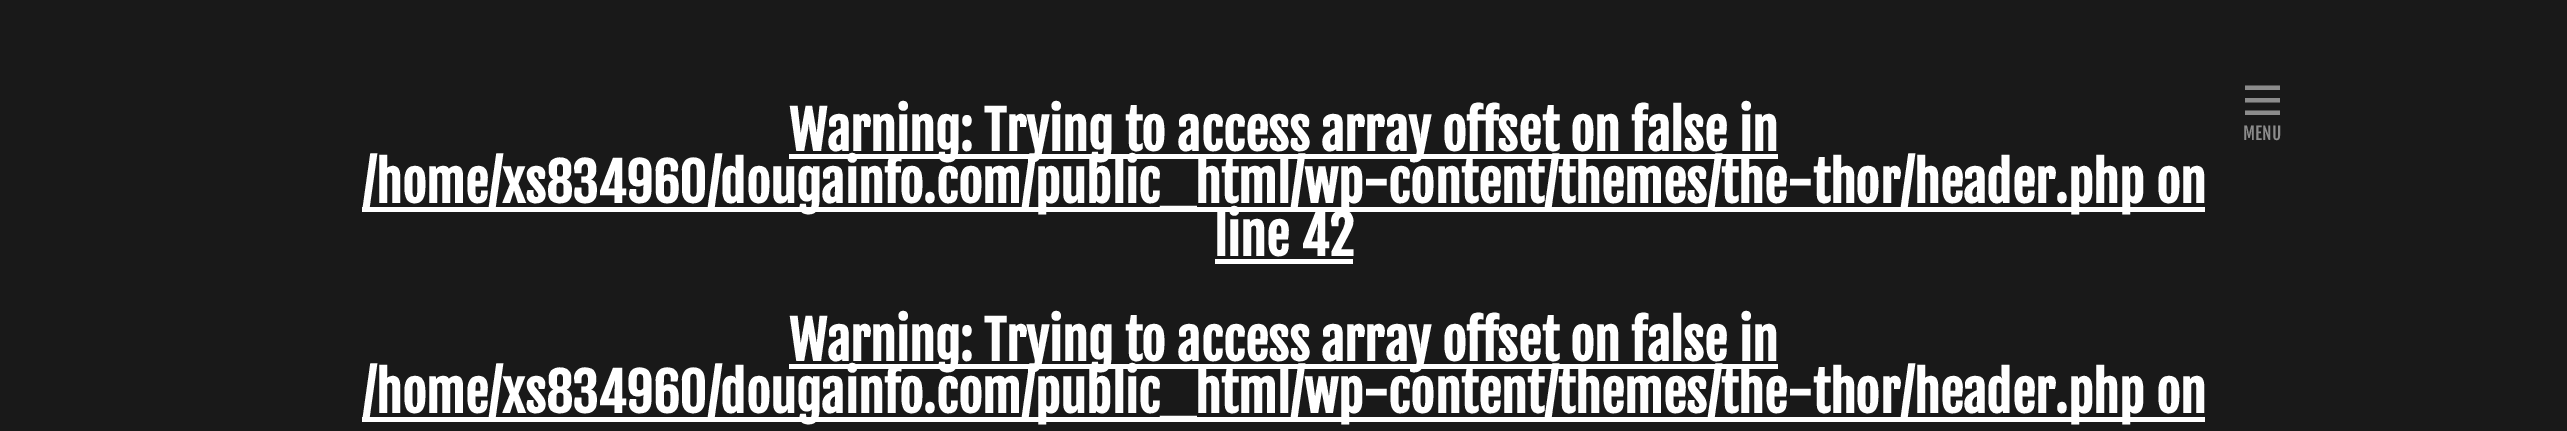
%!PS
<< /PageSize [2567 431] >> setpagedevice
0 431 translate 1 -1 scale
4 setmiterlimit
0.098 setgray
0 0 2567 431 rectfill
1 setgray
789 154 989 5 rectfill
/FjallaOne-Bold [52.5 0 0 -52.5 0 0] selectfont
789 151 moveto (Warning: Trying to access array offset on false in) show
362 207 1843 5 rectfill
362 203 moveto (/home/xs834960/dougainfo.com/public_html/wp-content/themes/the-thor/header.php on) show
1214 256 moveto (line 42) show
1215 259 138 5 rectfill
789 364 989 5 rectfill
789 361 moveto (Warning: Trying to access array offset on false in) show
362 417 1843 5 rectfill
362 413 moveto (/home/xs834960/dougainfo.com/public_html/wp-content/themes/the-thor/header.php on) show
0.549 setgray
newpath 2245 85.5 moveto 2280 85.5 lineto 2280 90 lineto 2245 90 lineto closepath 2245 98 moveto 2280 98 lineto 2280 102.5 lineto 2245 102.5 lineto closepath 2245 110.5 moveto 2280 110.5 lineto 2280 115 lineto 2245 115 lineto closepath fill
/FjallaOne-Regular [17.5 0 0 -17.5 0 0] selectfont
2243 140 moveto (MENU) show
showpage
